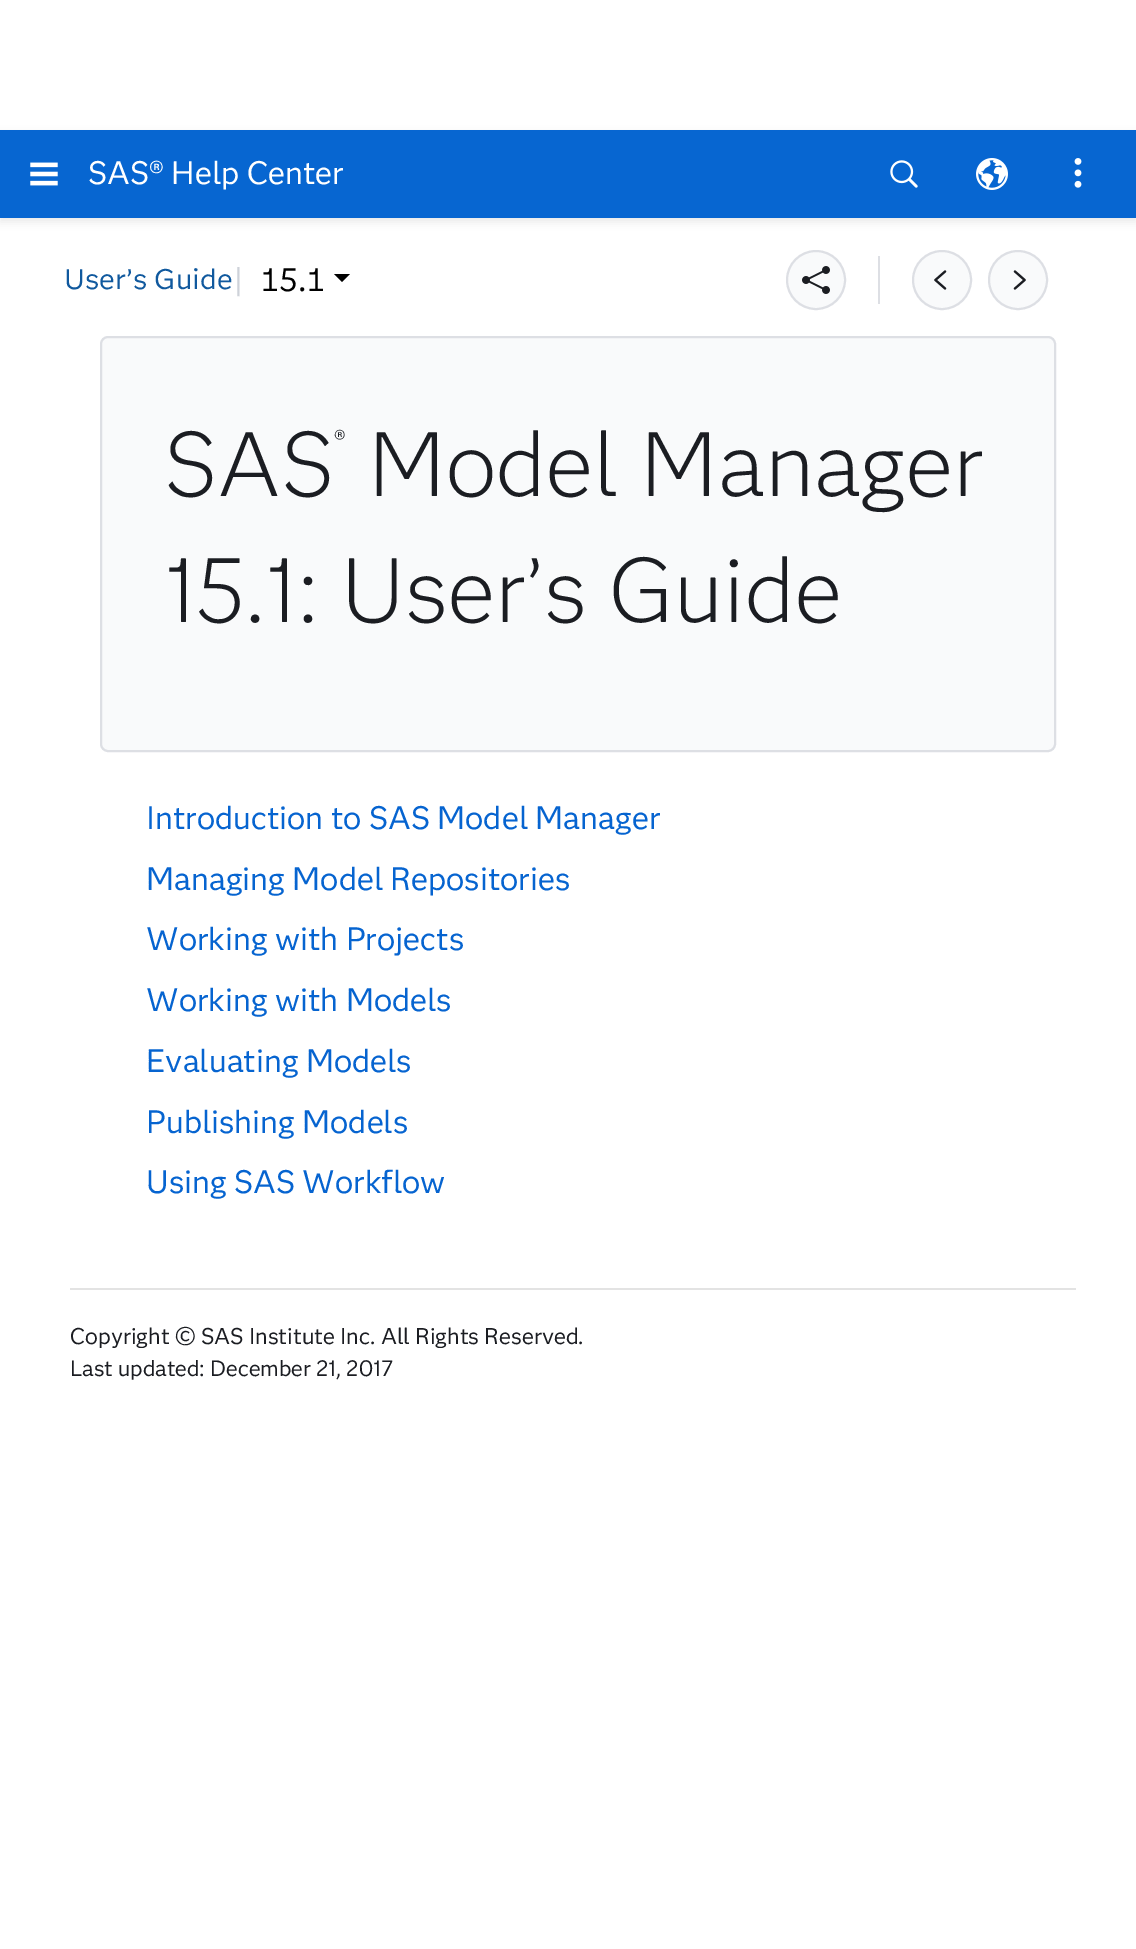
%!PS
<< /PageSize [1136 1949] /PageUsesTransparency true >> setpagedevice
/alpha { dup .setfillconstantalpha .setstrokeconstantalpha } def
/roundrect { 5 dict begin { /r /h /w /y /x } { exch def } forall
  x r add y moveto x w add y 2 copy h add r arct x w add y h add x 1 index r arct
  x y h add x y r arct x y 2 copy exch w add exch r arct closepath end } def
/shadow { 12 dict begin { /a /b /q /h /w /y /x } { exch def } forall gsave /was 0 def
  9 -2 -9 { dup b mul 4 div /e exch def 1 sub .425 mul 2.718 exch exp 1 add a .99 .min exch div /now exch def
    1 1 now sub 1 was sub div sub alpha /was now def
    w h .min e 2 mul add 0 gt { x e sub y e sub w e 2 mul add h e 2 mul add
      q e add b .6 mul add w h .min 2 div e add .min 0 .max roundrect fill } if } for grestore end } def
/picture { 5 dict begin { /h /w /y /x /name } { exch def } forall
  gsave x y translate w h scale
  w h 8 [w 0 0 h 0 0] name (r) file false 3 colorimage grestore end } def
0 .pushpdf14devicefilter
0 1949 translate 1 -1 scale
4 setmiterlimit
1 setgray
0 0 1136 1949 rectfill
0 setgray
0 134 1136 88 0 4 0.08 shadow
0.027 0.4 0.82 setrgbcolor
0 130 1136 88 rectfill
(img1.rgb) 30 162 28 24 picture
/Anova-Regular [32 0 0 -32 0 0] selectfont
1 setgray
88 184 moveto (SAS® Help Center) show
(img2.rgb) 890 160 28 28 picture
(img3.rgb) 976 158 32 32 picture
(img4.rgb) 1074 158 8 30 picture
/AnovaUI-Regular [28 0 0 -28 0 0] selectfont
0.063 0.349 0.62 setrgbcolor
64 289 moveto (User’s Guide) show
/AnovaUI-Regular [32 0 0 -32 0 0] selectfont
0.808 0.824 0.851 setrgbcolor
233 291 moveto (|) show
0 setgray
260 291 moveto (15.1) show
newpath 334 274 moveto 350 274 lineto 342 282 lineto closepath fill
0.976 0.98 0.984 setrgbcolor
newpath 816 280 29 0 360 arc closepath gsave fill grestore
0.867 0.875 0.894 setrgbcolor
2 setlinewidth
stroke
(img5.rgb) 802 266 28 28 picture
878 256 2 48 rectfill
0.976 0.98 0.984 setrgbcolor
newpath 942 280 29 0 360 arc closepath gsave fill grestore
0.867 0.875 0.894 setrgbcolor
stroke
(img6.rgb) 934 270 13 20 picture
0.976 0.98 0.984 setrgbcolor
newpath 1018 280 29 0 360 arc closepath gsave fill grestore
0.867 0.875 0.894 setrgbcolor
stroke
(img7.rgb) 1013 270 13 20 picture
0.976 0.98 0.984 setrgbcolor
101 337 954 414 7 roundrect gsave fill grestore
0.867 0.875 0.894 setrgbcolor
stroke
/Anova-Light [90 0 0 -90 0 0] selectfont
0.106 0.114 0.133 setrgbcolor
164 496 moveto (SAS) show
/Anova-Light [25 0 0 -25 0 0] selectfont
334 448 moveto (®) show
/Anova-Light [90 0 0 -90 0 0] selectfont
368 496 moveto (Model Manager) show
164 622 moveto (15.1: User’s Guide) show
/Anova-Regular [32 0 0 -32 0 0] selectfont
0.024 0.392 0.816 setrgbcolor
146 829 moveto (Introduction to SAS Model Manager) show
146 890 moveto (Managing Model Repositories) show
146 950 moveto (Working with Projects) show
146 1011 moveto (Working with Models) show
146 1072 moveto (Evaluating Models) show
146 1133 moveto (Publishing Models) show
146 1193 moveto (Using SAS Workflow) show
0.89 setgray
70 1288 1006 2 rectfill
/Anova-Regular [22.5 0 0 -22.5 0 0] selectfont
0.106 0.114 0.133 setrgbcolor
70 1344 moveto (Copyright © SAS Institute Inc. All Rights Reserved.) show
/Anova-Regular [22 0 0 -22 0 0] selectfont
70 1376 moveto (Last updated: December 21, 2017) show
.poppdf14devicefilter showpage
